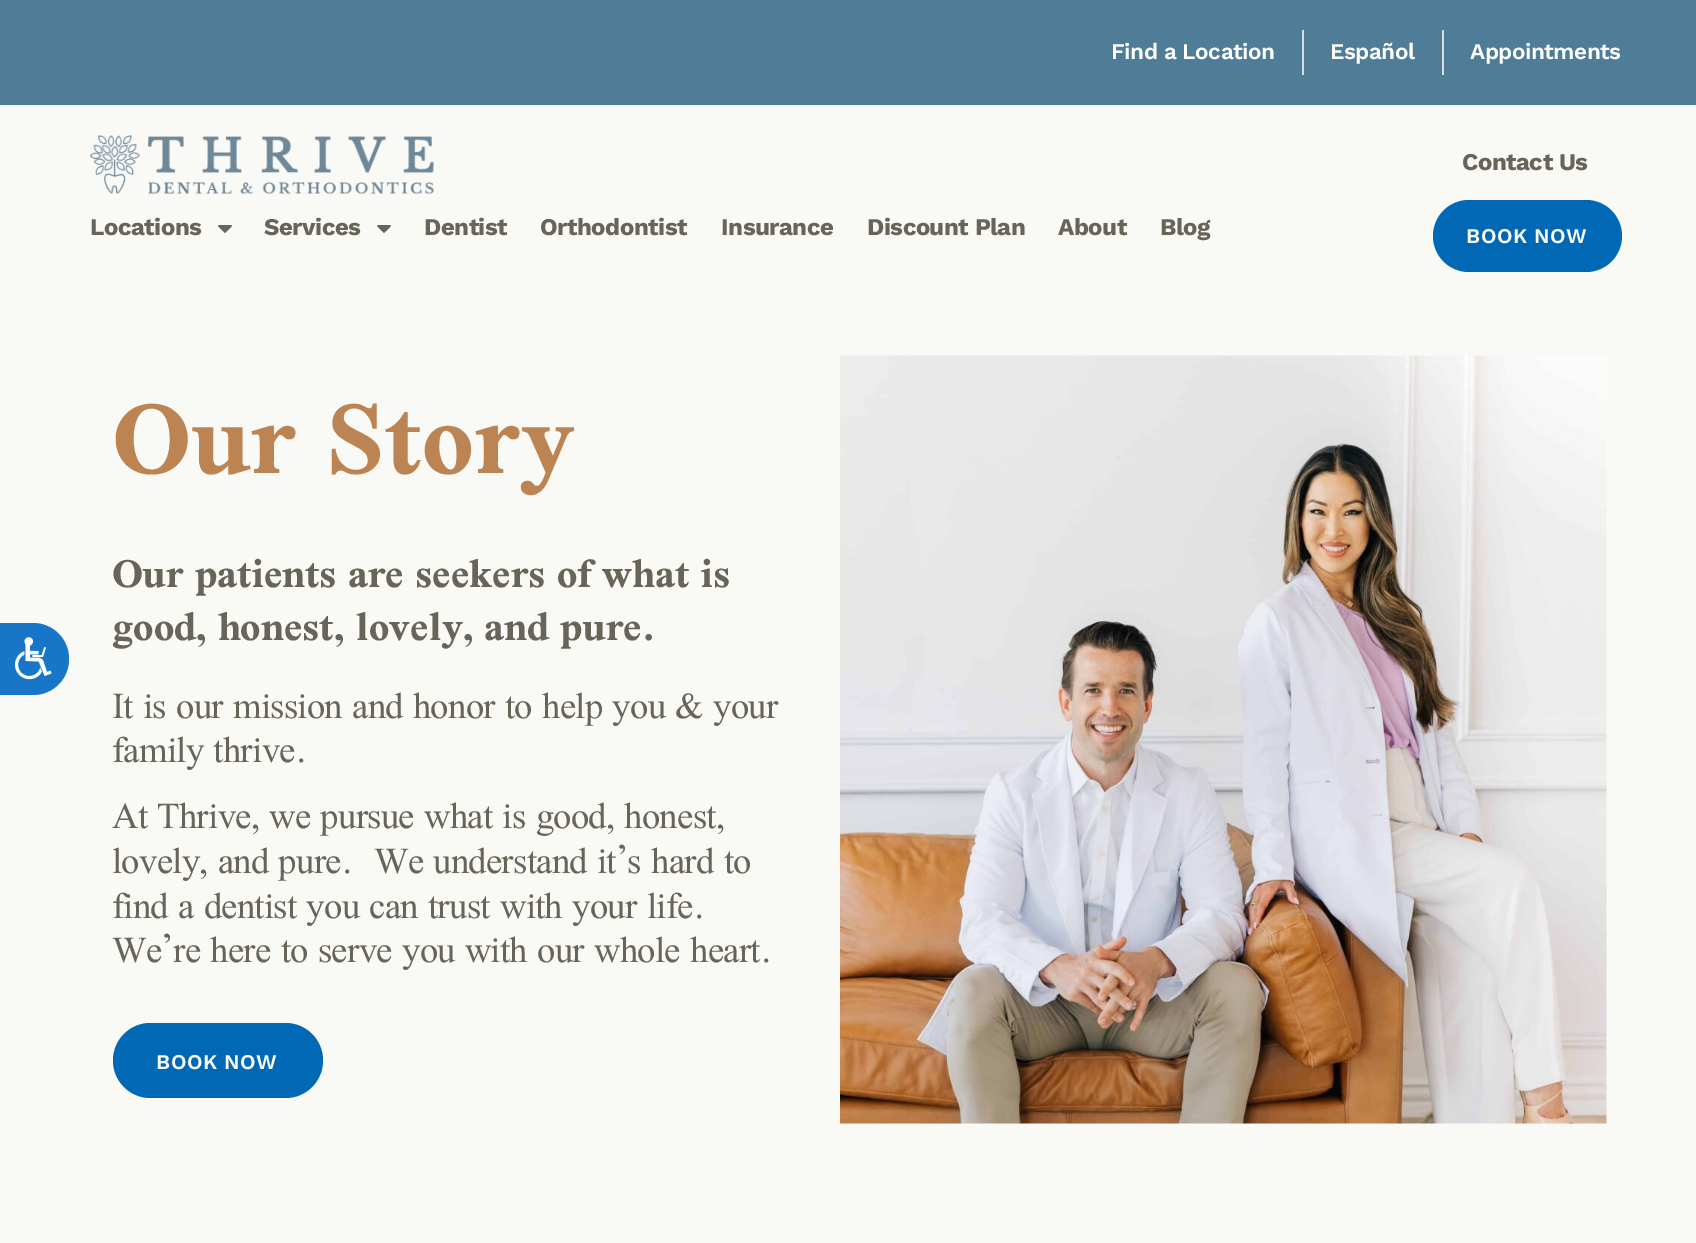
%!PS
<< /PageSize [1696 1243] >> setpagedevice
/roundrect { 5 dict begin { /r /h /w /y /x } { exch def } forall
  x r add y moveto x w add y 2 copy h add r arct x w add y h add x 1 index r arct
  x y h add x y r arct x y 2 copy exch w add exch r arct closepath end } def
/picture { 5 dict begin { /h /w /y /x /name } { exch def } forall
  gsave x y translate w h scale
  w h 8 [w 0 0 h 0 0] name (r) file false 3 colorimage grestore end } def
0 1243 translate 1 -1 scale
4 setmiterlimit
0.976 0.976 0.965 setrgbcolor
0 0 1696 1243 rectfill
0.31 0.49 0.592 setrgbcolor
0 0 1696 105 rectfill
/WorkSans-SemiBold [22.5 0 0 -22.5 0 0] selectfont
1 setgray
1111 59 moveto -0.5 0 (Find a Location) ashow
0.867 setgray
1302 30 2 45 rectfill
1 setgray
1330 59 moveto -0.5 0 (Español) ashow
0.867 setgray
1442 30 2 45 rectfill
1 setgray
1470 59 moveto -0.5 0 (Appointments) ashow
(img1.rgb) 90 135 344 59 picture
/WorkSans-Bold [24 0 0 -24 0 0] selectfont
0.412 0.392 0.349 setrgbcolor
90 235 moveto -0.5 0 (Locations) ashow
(img2.rgb) 218 225 14 8 picture
264 235 moveto -0.5 0 (Services) ashow
(img2.rgb) 377 225 14 8 picture
424 235 moveto -0.5 0 (Dentist) ashow
540 235 moveto -0.5 0 (Orthodontist) ashow
721 235 moveto -0.5 0 (Insurance) ashow
867 235 moveto -0.5 0 (Discount Plan) ashow
1058 235 moveto -0.5 0 (About) ashow
1160 235 moveto -0.5 0 (Blog) ashow
1462 170 moveto -0.5 0 (Contact Us) ashow
0 0.408 0.71 setrgbcolor
1433 200 189 72 36 roundrect fill
/WorkSans-SemiBold [21 0 0 -21 0 0] selectfont
0.976 0.976 0.965 setrgbcolor
1466 243 moveto 0.5 0 (BOOK NOW) ashow
0.094 0.463 0.788 setrgbcolor
newpath 0 623 moveto 33 623 lineto 53 623 69 639 69 659 curveto 69 679 53 695 33 695 curveto 0 695 lineto closepath fill
(img3.rgb) 14 637 38 43 picture
/ScheherazadeNew-Bold [113.5 0 0 -113.5 0 0] selectfont
0.737 0.518 0.322 setrgbcolor
112 473 moveto 1 0 (Our Story) ashow
/ScheherazadeNew-Bold [44.5 0 0 -44.5 0 0] selectfont
0.412 0.392 0.349 setrgbcolor
112 587 moveto (Our patients are seekers of what is) show
112 640 moveto (good, honest, lovely, and pure.) show
/ScheherazadeNew-Regular [40.5 0 0 -40.5 0 0] selectfont
112 718 moveto -0.75 0 (It is our mission and honor to help you & your) ashow
112 762 moveto -0.75 0 (family thrive.) ashow
112 828 moveto -0.75 0 (At Thrive, we pursue what is good, honest,) ashow
112 873 moveto -0.75 0 (lovely, and pure.  We understand it’s hard to) ashow
112 918 moveto -0.75 0 (find a dentist you can trust with your life.) ashow
112 962 moveto -0.75 0 (We’re here to serve you with our whole heart.) ashow
0 0.408 0.71 setrgbcolor
113 1023 210 75 37.5 roundrect fill
/WorkSans-SemiBold [21 0 0 -21 0 0] selectfont
0.976 0.976 0.965 setrgbcolor
156 1069 moveto 0.5 0 (BOOK NOW) ashow
(img4.rgb) 840 355 767 769 picture
showpage
